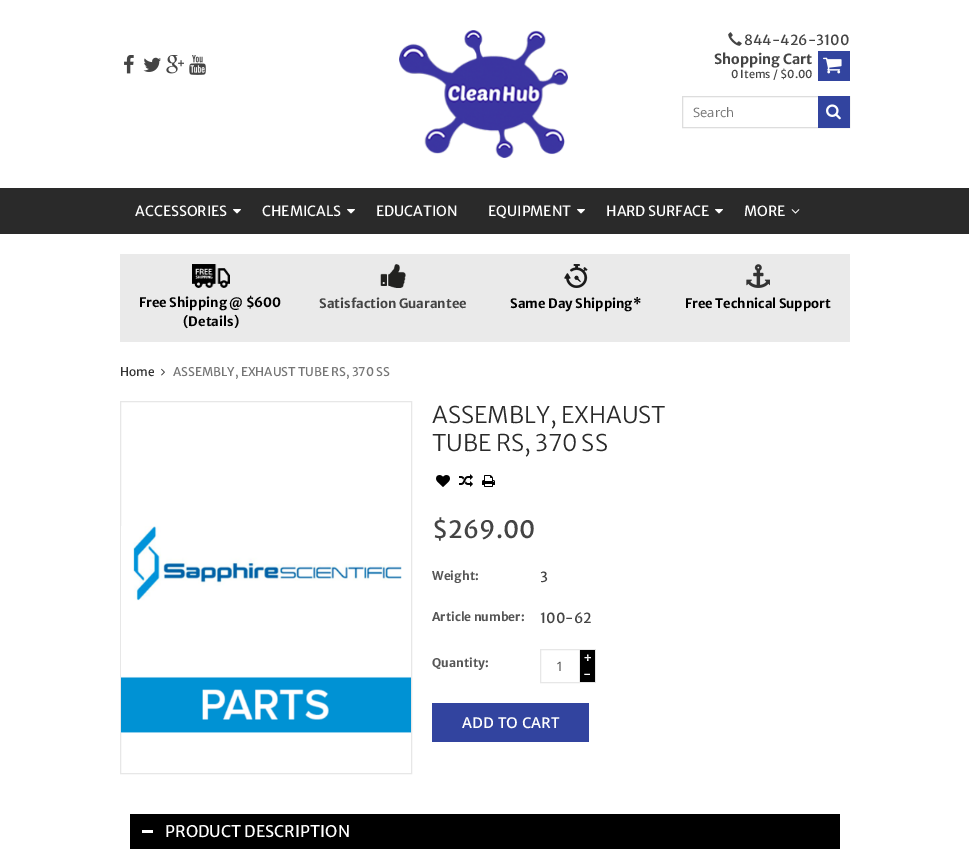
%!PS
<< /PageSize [969 867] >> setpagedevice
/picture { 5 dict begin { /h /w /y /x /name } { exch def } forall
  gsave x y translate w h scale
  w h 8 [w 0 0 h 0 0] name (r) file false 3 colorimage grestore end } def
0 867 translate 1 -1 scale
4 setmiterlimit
1 setgray
0 0 969 867 rectfill
(img1.rgb) 124 55 10 19 picture
(img2.rgb) 143 57 18 15 picture
(img3.rgb) 166 55 18 19 picture
(img4.rgb) 189 55 17 20 picture
(img5.rgb) 399 30 169 128 picture
(img6.rgb) 728 32 14 14 picture
/MerriweatherSans-Regular [14 0 0 -14 0 0] selectfont
0.267 setgray
744 45 moveto (844-426-3100) show
/MerriweatherSans-Bold [14 0 0 -14 0 0] selectfont
714 64 moveto (Shopping Cart) show
/MerriweatherSans-Regular [11 0 0 -11 0 0] selectfont
731 78 moveto (0 Items / $0.00) show
0.196 0.267 0.624 setrgbcolor
818 51 32 30 rectfill
(img7.rgb) 823 57 19 17 picture
0.867 setgray
682.5 96.5 167 31 rectstroke
/OpenSans-Regular [13 0 0 -13 0 0] selectfont
0.459 setgray
693 117 moveto (Search) show
0.196 0.267 0.624 setrgbcolor
818 96 32 32 rectfill
(img8.rgb) 826 104 15 16 picture
0.165 setgray
0 188 969 46 rectfill
/MerriweatherSans-Regular [14 0 0 -14 0 0] selectfont
1 setgray
135 216 moveto (ACCESSORIES) show
(img9.rgb) 233 209 8 5 picture
262 216 moveto (CHEMICALS) show
(img9.rgb) 347 209 8 5 picture
376 216 moveto (EDUCATION) show
488 216 moveto (EQUIPMENT) show
(img9.rgb) 577 209 8 5 picture
606 216 moveto (HARD SURFACE) show
(img9.rgb) 715 209 8 5 picture
744 216 moveto (MORE) show
(img10.rgb) 791 209 9 5 picture
0.918 setgray
120 254 730 88 rectfill
(img11.rgb) 192 264 38 24 picture
/MerriweatherSans-Bold [13 0 0 -13 0 0] selectfont
0 setgray
139 307 moveto (Free Shipping @ $600) show
183 326 moveto (\(Details\)) show
(img12.rgb) 380 264 26 24 picture
0.267 setgray
319 308 moveto (Satisfaction Guarantee) show
(img13.rgb) 564 264 24 24 picture
0 setgray
510 308 moveto (Same Day Shipping*) show
(img14.rgb) 746 264 24 24 picture
685 308 moveto (Free Technical Support) show
/MerriweatherSans-Regular [12 0 0 -12 0 0] selectfont
0.2 setgray
120 376 moveto (Home) show
(img15.rgb) 161 368 4 8 picture
0.459 setgray
173 376 moveto (ASSEMBLY, EXHAUST TUBE RS, 370 SS) show
0.906 setgray
120.5 401.5 291 372 rectstroke
(img16.rgb) 121 526 290 207 picture
/MerriweatherSans-Light [23 0 0 -23 0 0] selectfont
0.165 setgray
432 423 moveto (ASSEMBLY, EXHAUST) show
432 451 moveto (TUBE RS, 370 SS) show
(img17.rgb) 436 475 14 12 picture
(img18.rgb) 459 474 14 13 picture
(img19.rgb) 482 475 13 12 picture
/MerriweatherSans-Regular [24 0 0 -24 0 0] selectfont
0.267 setgray
432 538 moveto ($269.00) show
/MerriweatherSans-Bold [12 0 0 -12 0 0] selectfont
0.337 setgray
432 580 moveto (Weight:) show
/MerriweatherSans-Regular [14 0 0 -14 0 0] selectfont
0.267 setgray
540 582 moveto (3) show
/MerriweatherSans-Bold [12 0 0 -12 0 0] selectfont
0.337 setgray
432 621 moveto (Article number:) show
/MerriweatherSans-Regular [14 0 0 -14 0 0] selectfont
0.267 setgray
540 623 moveto (100-62) show
/MerriweatherSans-Bold [12 0 0 -12 0 0] selectfont
0.337 setgray
432 667 moveto (Quantity:) show
0.906 setgray
540.5 649.5 39 33 rectstroke
/OpenSans-Regular [13 0 0 -13 0 0] selectfont
0.267 setgray
556 671 moveto (1) show
0 setgray
580 650 15 32 rectfill
0.898 setgray
580 649 16 1 rectfill
595 649 1 34 rectfill
580 682 16 1 rectfill
/MerriweatherSans-Regular [14 0 0 -14 0 0] selectfont
1 setgray
583 663 moveto (+) show
583 679 moveto (-) show
0.196 0.267 0.624 setrgbcolor
432 703 157 39 rectfill
/OpenSans-SemiBold [15 0 0 -15 0 0] selectfont
1 setgray
462 728 moveto (ADD TO CART) show
0 setgray
130 814 710 35 rectfill
1 setgray
142 830 11 3 rectfill
/MerriweatherSans-Regular [16 0 0 -16 0 0] selectfont
165 837 moveto (PRODUCT DESCRIPTION) show
showpage
